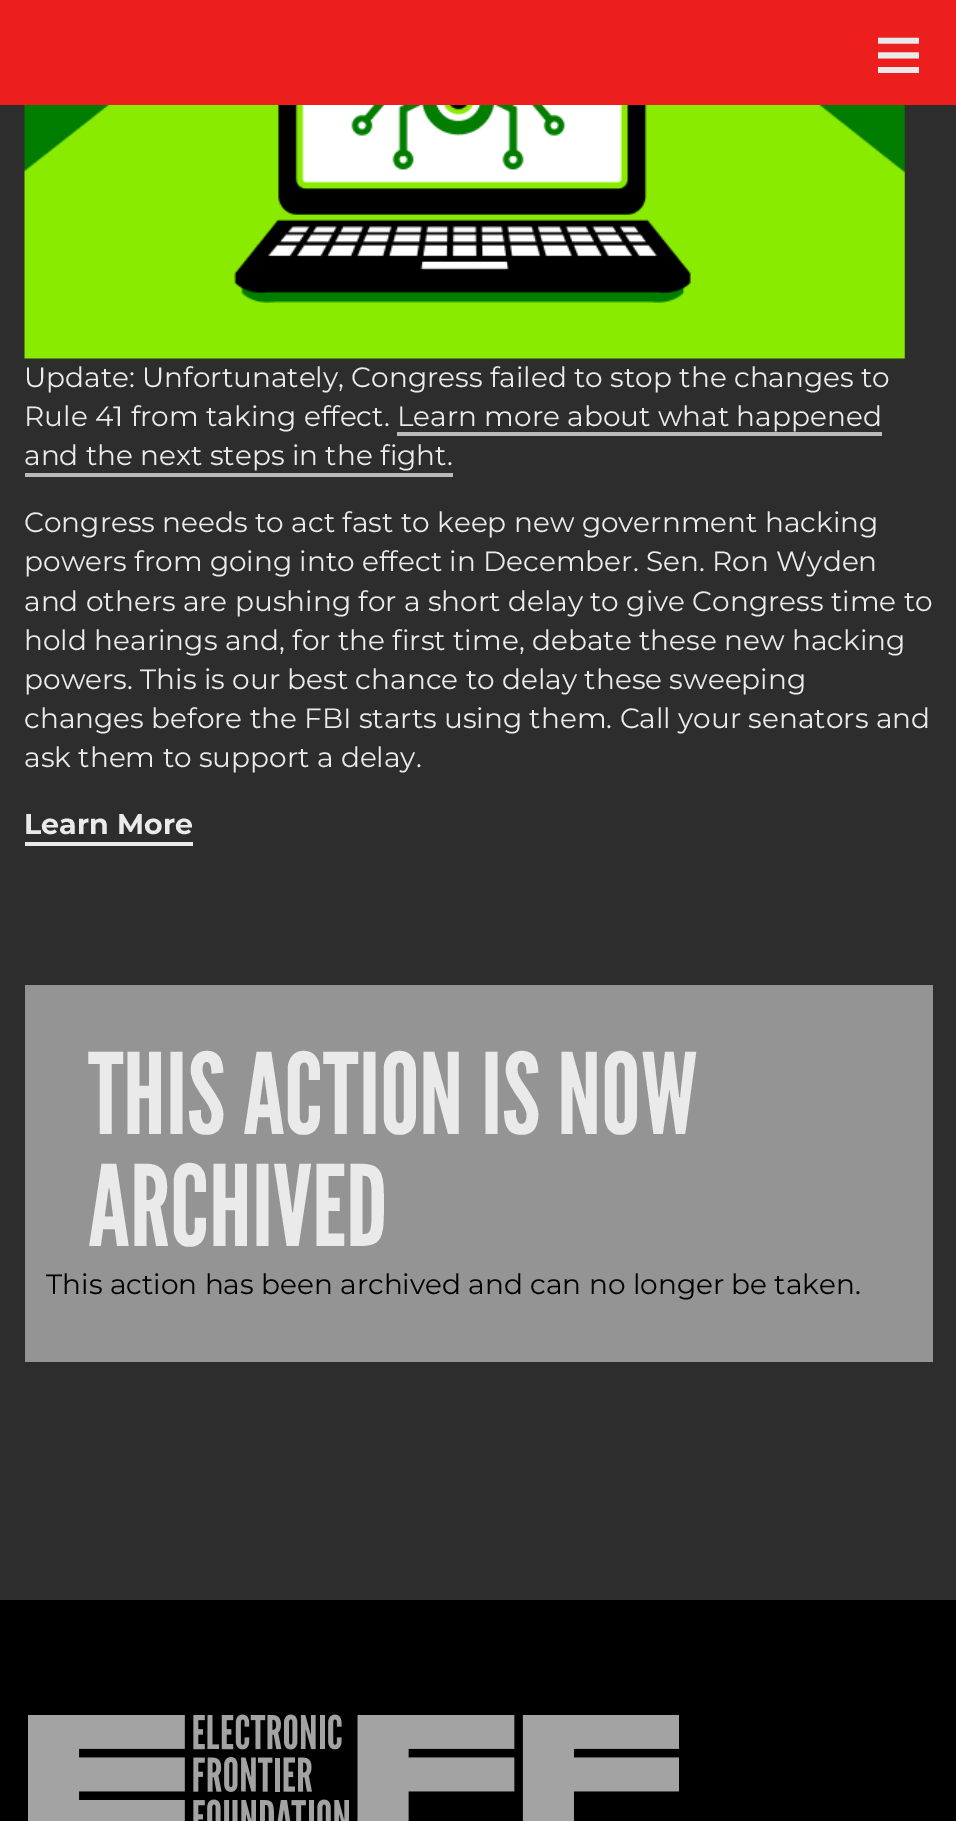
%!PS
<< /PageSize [956 1821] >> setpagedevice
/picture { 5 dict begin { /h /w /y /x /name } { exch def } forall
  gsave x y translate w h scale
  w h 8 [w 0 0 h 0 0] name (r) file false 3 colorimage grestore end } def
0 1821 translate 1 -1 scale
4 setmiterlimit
0.176 setgray
0 0 956 1821 rectfill
0.925 0.118 0.118 setrgbcolor
0 0 956 105 rectfill
/LiberationSans-Regular [84 0 0 -84 0 0] selectfont
0.918 setgray
874 83 moveto (≡) show
(img1.rgb) 24 105 881 254 picture
/Montserrat-Regular [28 0 0 -28 0 0] selectfont
24 387 moveto (Update: Unfortunately, Congress failed to stop the changes to) show
24 426 moveto (Rule 41 from taking effect. Learn more about what happened) show
24 465 moveto (and the next steps in the fight.) show
0.729 setgray
397 432 485 4 rectfill
25 473 428 4 rectfill
0.918 setgray
24 532 moveto (Congress needs to act fast to keep new government hacking) show
24 571 moveto (powers from going into effect in December. Sen. Ron Wyden) show
24 611 moveto (and others are pushing for a short delay to give Congress time to) show
24 650 moveto (hold hearings and, for the first time, debate these new hacking) show
24 689 moveto (powers. This is our best chance to delay these sweeping) show
24 728 moveto (changes before the FBI starts using them. Call your senators and) show
24 767 moveto (ask them to support a delay.) show
25 842 168 4 rectfill
/Montserrat-Bold [28.5 0 0 -28.5 0 0] selectfont
24 834 moveto (Learn More) show
0.58 setgray
25 985 908 377 rectfill
/LeagueGothic-Regular [112 0 0 -112 0 0] selectfont
0.918 setgray
88 1134 moveto (THIS ACTION IS NOW) show
88 1246 moveto (ARCHIVED) show
/Montserrat-Regular [28 0 0 -28 0 0] selectfont
0 setgray
46 1294 moveto (This action has been archived and can no longer be taken.) show
0 1600 956 221 rectfill
(img2.rgb) 28 1714 651 107 picture
showpage
